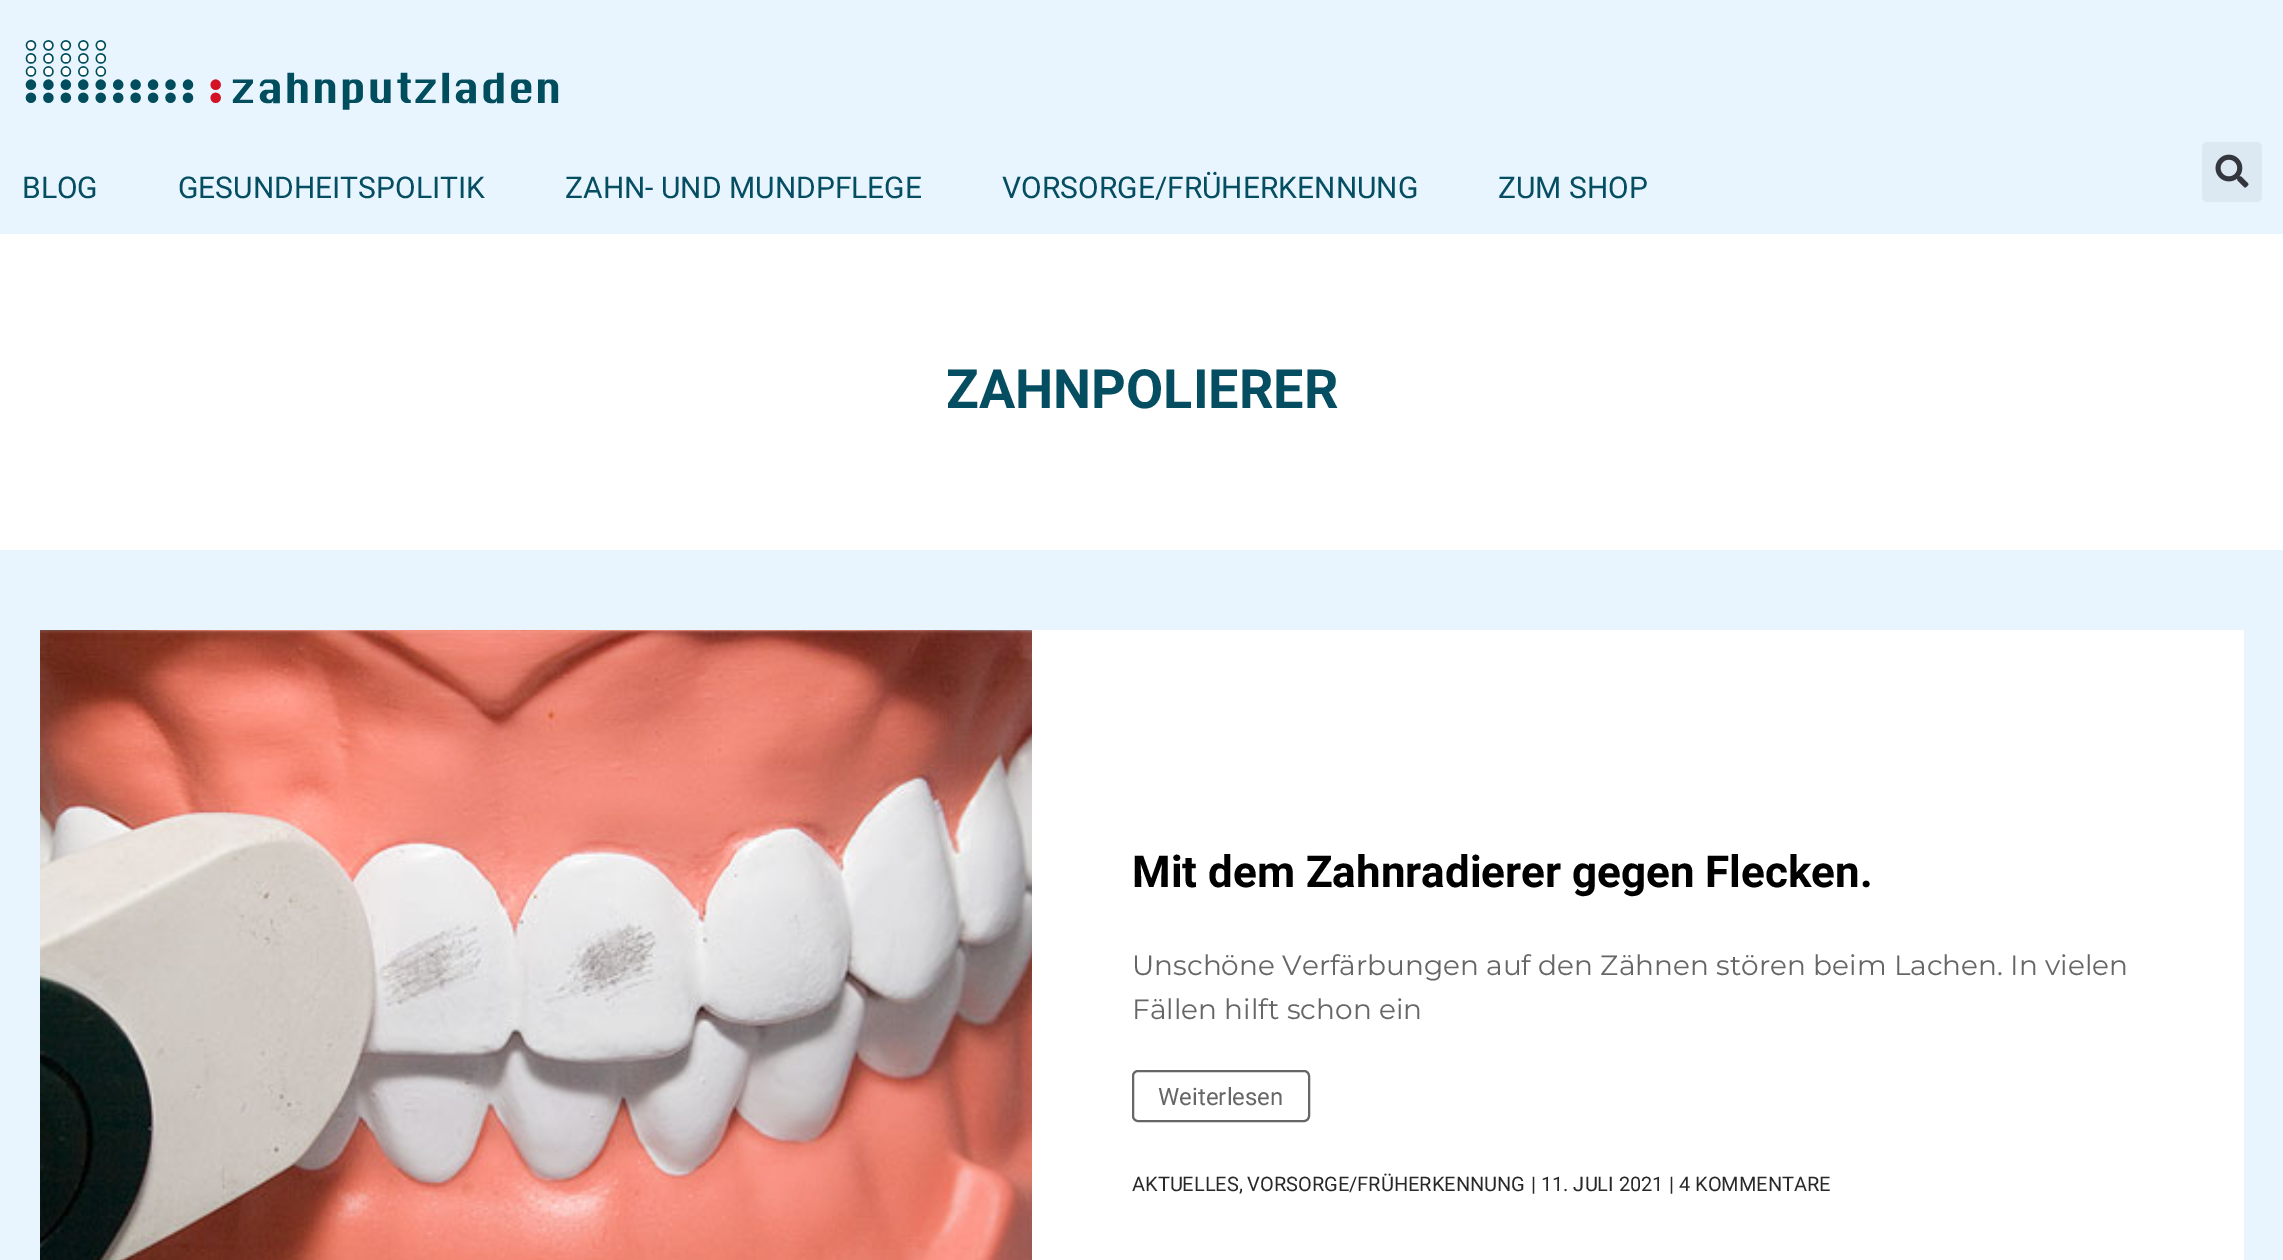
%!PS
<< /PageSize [2283 1260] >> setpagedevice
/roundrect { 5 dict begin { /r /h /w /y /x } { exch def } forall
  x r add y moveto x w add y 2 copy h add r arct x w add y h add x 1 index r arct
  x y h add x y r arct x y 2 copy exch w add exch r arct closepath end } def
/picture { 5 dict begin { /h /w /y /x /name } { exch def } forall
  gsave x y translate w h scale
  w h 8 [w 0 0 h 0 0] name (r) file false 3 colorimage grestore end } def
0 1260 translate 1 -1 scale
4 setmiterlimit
0.91 0.961 1 setrgbcolor
0 0 2283 1260 rectfill
(img1.rgb) 25 40 534 70 picture
/Roboto-Regular [30 0 0 -30 0 0] selectfont
0.02 0.302 0.38 setrgbcolor
22 198 moveto (BLOG) show
178 198 moveto (GESUNDHEITSPOLITIK) show
565 198 moveto (ZAHN- UND MUNDPFLEGE) show
1002 198 moveto (VORSORGE/FRÜHERKENNUNG) show
1498 198 moveto (ZUM SHOP) show
0.863 0.914 0.949 setrgbcolor
2202 142 60 60 6 roundrect fill
(img2.rgb) 2215 154 34 34 picture
1 setgray
0 234 2283 316 rectfill
/Roboto-Bold [54 0 0 -54 0 0] selectfont
0.02 0.302 0.38 setrgbcolor
946 408 moveto (ZAHNPOLIERER) show
1 setgray
1032 630 1212 630 rectfill
(img3.rgb) 40 630 992 630 picture
/Roboto-Bold [44 0 0 -44 0 0] selectfont
0 setgray
1132 887 moveto (Mit dem Zahnradierer gegen Flecken.) show
/Montserrat-Regular [28 0 0 -28 0 0] selectfont
0.4 setgray
1132 975 moveto (Unschöne Verfärbungen auf den Zähnen stören beim Lachen. In vielen) show
1132 1019 moveto (Fällen hilft schon ein) show
2 setlinewidth
1133 1071 176 50 5 roundrect stroke
/Roboto-Regular [24 0 0 -24 0 0] selectfont
1158 1105 moveto (Weiterlesen) show
/Roboto-Regular [20 0 0 -20 0 0] selectfont
0.157 setgray
1132 1191 moveto (AKTUELLES, VORSORGE/FRÜHERKENNUNG) show
1531 1191 moveto (| 11. JULI 2021) show
1669 1191 moveto (| 4 KOMMENTARE) show
showpage
